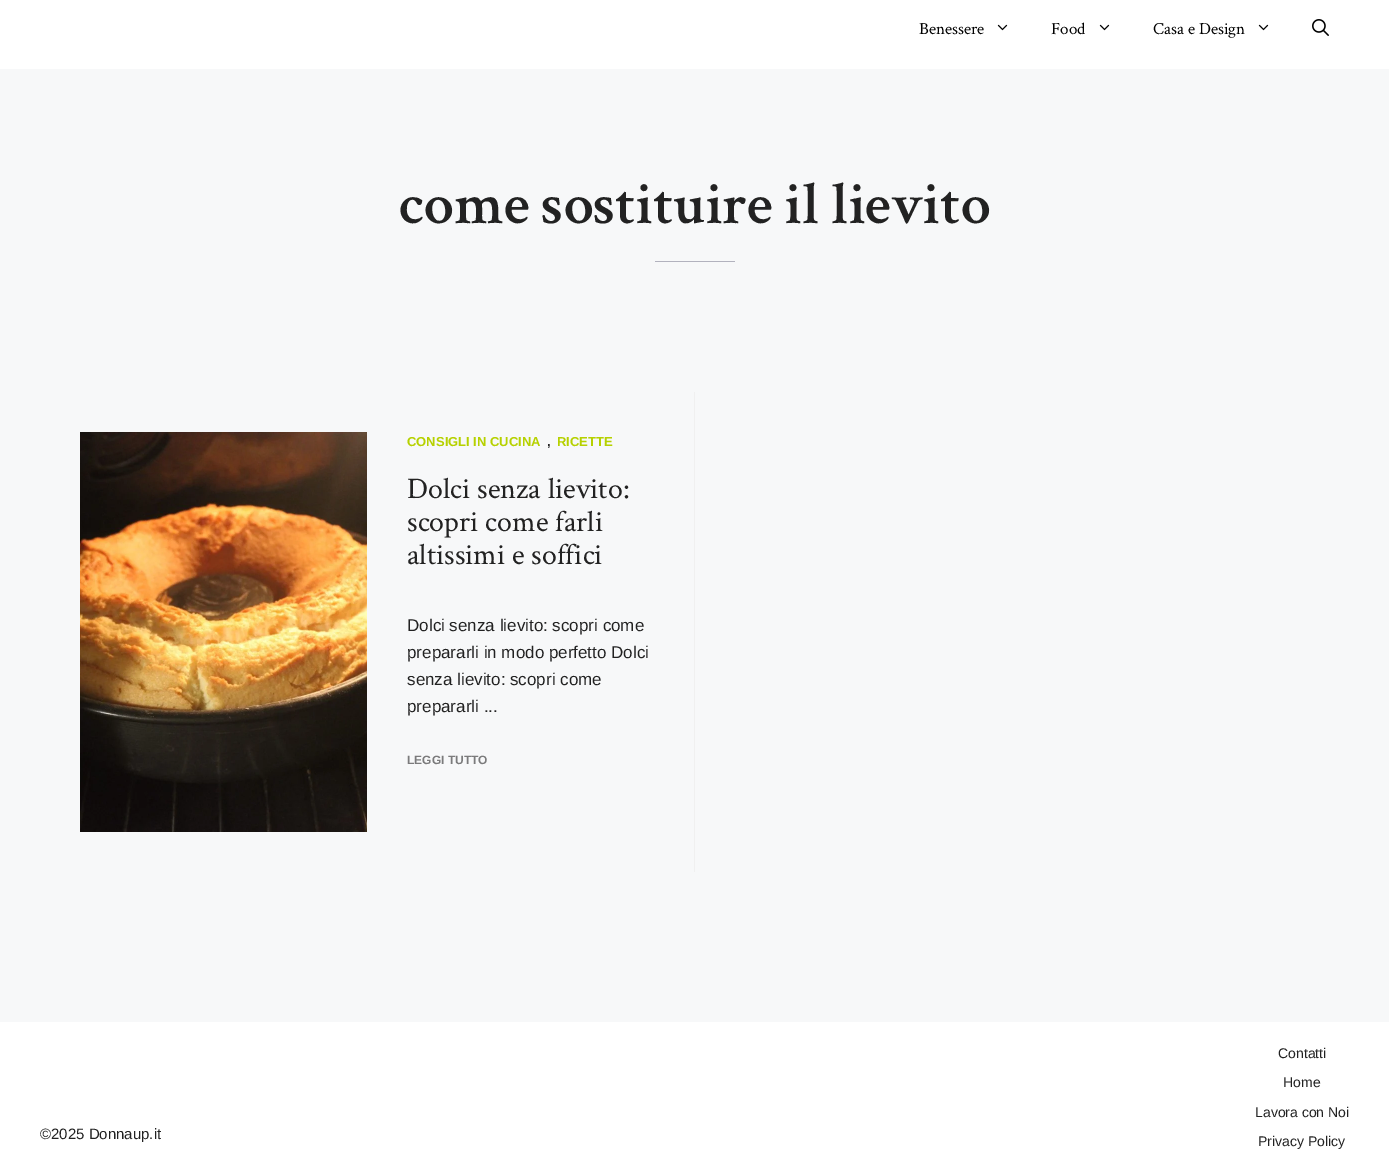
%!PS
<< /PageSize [1389 1163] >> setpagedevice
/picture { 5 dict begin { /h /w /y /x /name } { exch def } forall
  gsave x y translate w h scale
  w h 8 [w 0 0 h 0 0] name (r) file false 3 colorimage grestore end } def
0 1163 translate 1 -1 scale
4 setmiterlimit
0.969 0.973 0.976 setrgbcolor
0 0 1389 1163 rectfill
1 setgray
0 0 1389 69 rectfill
/CrimsonText-Regular [17 0 0 -17 0 0] selectfont
0 setgray
919 34 moveto (Benessere) show
(img1.rgb) 997 24 11 7 picture
1051 34 moveto (Food) show
(img1.rgb) 1099 24 11 7 picture
1153 34 moveto (Casa e Design) show
(img1.rgb) 1258 24 11 7 picture
(img2.rgb) 1312 19 17 17 picture
/CrimsonText-SemiBold [60 0 0 -60 0 0] selectfont
0.133 setgray
399 223 moveto (come sostituire il lievito) show
0.698 0.698 0.745 setrgbcolor
655 261 80 1 rectfill
0.941 setgray
694 392 1 480 rectfill
(img3.rgb) 80 432 287 400 picture
/LiberationSans-Bold [13 0 0 -13 0 0] selectfont
0.714 0.82 0 setrgbcolor
407 446 moveto (CONSIGLI IN CUCINA) show
0.133 setgray
547 446 moveto (,) show
0.714 0.82 0 setrgbcolor
557 446 moveto (RICETTE) show
/CrimsonText-Regular [30 0 0 -30 0 0] selectfont
0.133 setgray
407 498 moveto (Dolci senza lievito:) show
407 531 moveto (scopri come farli) show
407 564 moveto (altissimi e soffici) show
/LiberationSans-Regular [17 0 0 -17 0 0] selectfont
407 631 moveto (Dolci senza lievito: scopri come) show
407 658 moveto (prepararli in modo perfetto Dolci) show
407 685 moveto (senza lievito: scopri come) show
407 712 moveto (prepararli ...) show
/LiberationSans-Bold [12 0 0 -12 0 0] selectfont
0.482 0.482 0.486 setrgbcolor
407 764 moveto (LEGGI TUTTO) show
1 setgray
0 1022 1389 141 rectfill
/LiberationSans-Regular [15 0 0 -15 0 0] selectfont
0.133 setgray
40 1139 moveto (©2025 Donnaup.it) show
/LiberationSans-Regular [14 0 0 -14 0 0] selectfont
1278 1058 moveto (Contatti) show
1283 1087 moveto (Home) show
1255 1117 moveto (Lavora con Noi) show
1258 1146 moveto (Privacy Policy) show
showpage
